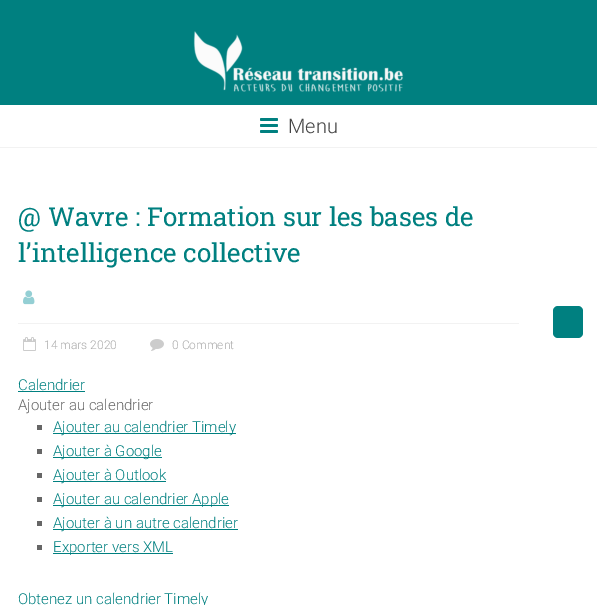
%!PS
<< /PageSize [597 605] >> setpagedevice
/roundrect { 5 dict begin { /r /h /w /y /x } { exch def } forall
  x r add y moveto x w add y 2 copy h add r arct x w add y h add x 1 index r arct
  x y h add x y r arct x y 2 copy exch w add exch r arct closepath end } def
/picture { 5 dict begin { /h /w /y /x /name } { exch def } forall
  gsave x y translate w h scale
  w h 8 [w 0 0 h 0 0] name (r) file false 3 colorimage grestore end } def
0 605 translate 1 -1 scale
4 setmiterlimit
1 setgray
0 0 597 605 rectfill
0 0.502 0.502 setrgbcolor
0 0 597 105 rectfill
0.949 setgray
0 147 597 1 rectfill
(img1.rgb) 193 31 211 61 picture
(img2.rgb) 260 118 18 15 picture
/Roboto-Light [20 0 0 -20 0 0] selectfont
0.267 setgray
288 133 moveto (Menu) show
/RobotoSlab-Regular [26 0 0 -26 0 0] selectfont
0 0.502 0.502 setrgbcolor
18 226 moveto (@ Wavre : Formation sur les bases de) show
18 262 moveto (l’intelligence collective) show
(img3.rgb) 23 290 12 15 picture
0.949 setgray
18 323 501 1 rectfill
0 0.502 0.502 setrgbcolor
553 306 30 32 5 roundrect fill
(img4.rgb) 23 337 13 14 picture
/Roboto-Light [12 0 0 -12 0 0] selectfont
0.667 setgray
44 349 moveto (14 mars 2020) show
(img5.rgb) 150 339 14 12 picture
172 349 moveto (0 Comment) show
/Roboto-Light [15 0 0 -15 0 0] selectfont
0 0.502 0.502 setrgbcolor
18 390 moveto (Calendrier) show
18 391 67 1 rectfill
0.4 setgray
18 410 moveto (Ajouter au calendrier) show
37 425 5 5 rectfill
0 0.502 0.502 setrgbcolor
53 433 183 1 rectfill
53 432 moveto (Ajouter au calendrier Timely) show
0.4 setgray
37 449 5 5 rectfill
0 0.502 0.502 setrgbcolor
53 457 109 1 rectfill
53 456 moveto (Ajouter à Google) show
0.4 setgray
37 473 5 5 rectfill
0 0.502 0.502 setrgbcolor
53 481 113 1 rectfill
53 480 moveto (Ajouter à Outlook) show
0.4 setgray
37 497 5 5 rectfill
0 0.502 0.502 setrgbcolor
53 505 176 1 rectfill
53 504 moveto (Ajouter au calendrier Apple) show
0.4 setgray
37 521 5 5 rectfill
0 0.502 0.502 setrgbcolor
53 529 185 1 rectfill
53 528 moveto (Ajouter à un autre calendrier) show
0.4 setgray
37 545 5 5 rectfill
0 0.502 0.502 setrgbcolor
53 553 120 1 rectfill
53 552 moveto (Exporter vers XML) show
18 604 moveto (Obtenez un calendrier Timely) show
showpage
